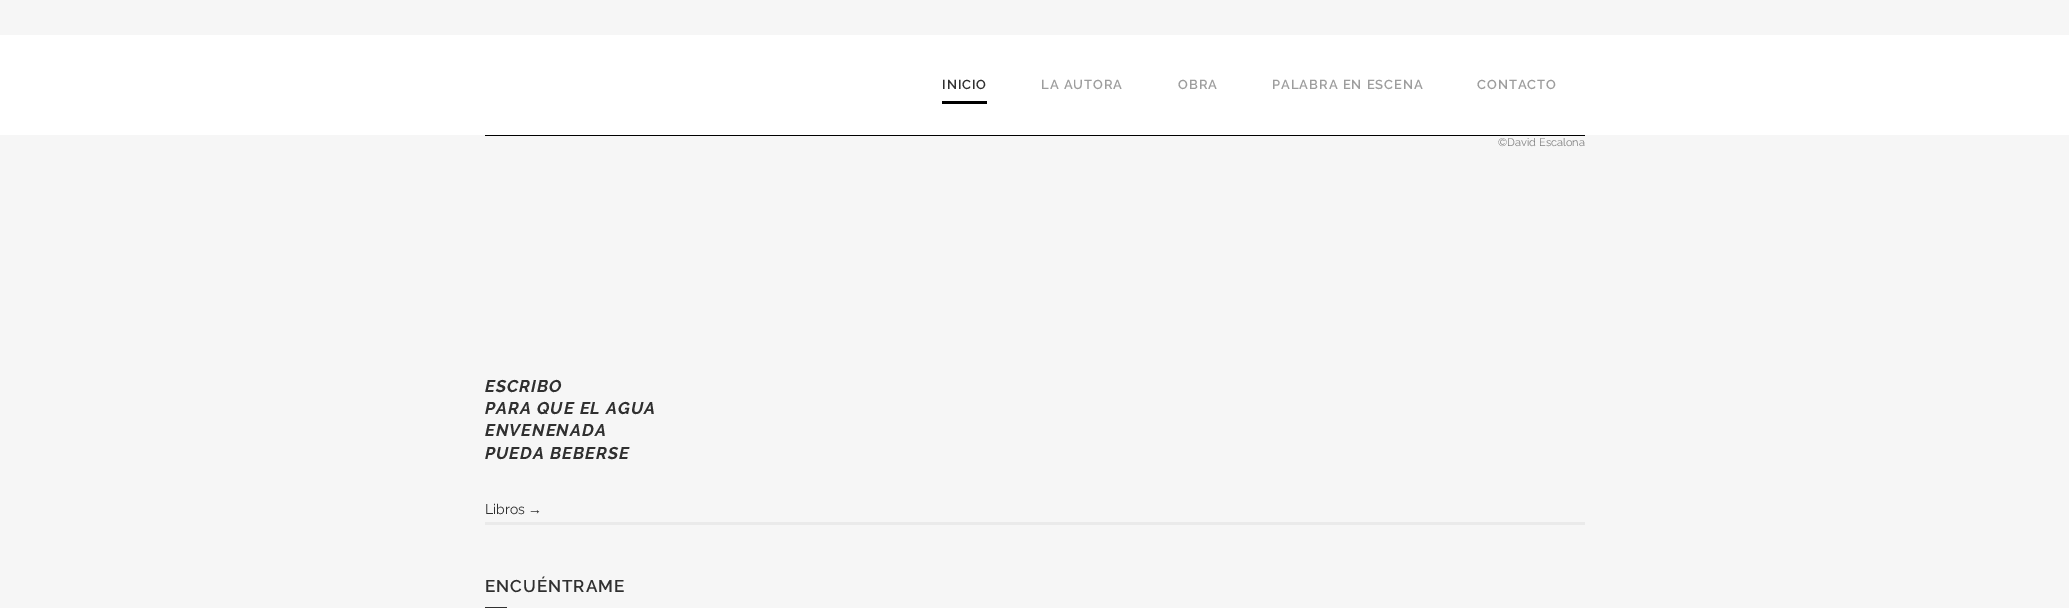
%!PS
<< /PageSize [2069 608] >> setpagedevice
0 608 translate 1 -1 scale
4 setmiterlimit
0.965 setgray
0 0 2069 608 rectfill
1 setgray
0 35 2069 100 rectfill
0 setgray
485 135 1100 1 rectfill
942 101 45 3 rectfill
/Raleway-SemiBold [13 0 0 -13 0 0] selectfont
0.188 setgray
942 89 moveto 1 0 (INICIO) ashow
0.616 setgray
1041 89 moveto 1 0 (LA AUTORA) ashow
1178 89 moveto 1 0 (OBRA) ashow
1272 89 moveto 1 0 (PALABRA EN ESCENA) ashow
1477 89 moveto 1 0 (CONTACTO) ashow
/Raleway-Regular [11 0 0 -11 0 0] selectfont
0.506 setgray
1498 146 moveto (©David Escalona) show
/Raleway-BoldItalic [17 0 0 -17 0 0] selectfont
0.188 setgray
485 392 moveto 1 0 (ESCRIBO) ashow
485 414 moveto 1 0 (PARA QUE EL AGUA) ashow
485 436 moveto 1 0 (ENVENENADA) ashow
485 459 moveto 1 0 (PUEDA BEBERSE) ashow
/Raleway-Regular [14 0 0 -14 0 0] selectfont
485 514 moveto (Libros) show
/LiberationSans-Regular [14 0 0 -14 0 0] selectfont
528 514 moveto (→) show
0.918 setgray
485 522 1100 3 rectfill
/Raleway-SemiBold [17 0 0 -17 0 0] selectfont
0.188 setgray
485 592 moveto 1 0 (ENCUÉNTRAME) ashow
485 607 22 1 rectfill
showpage
